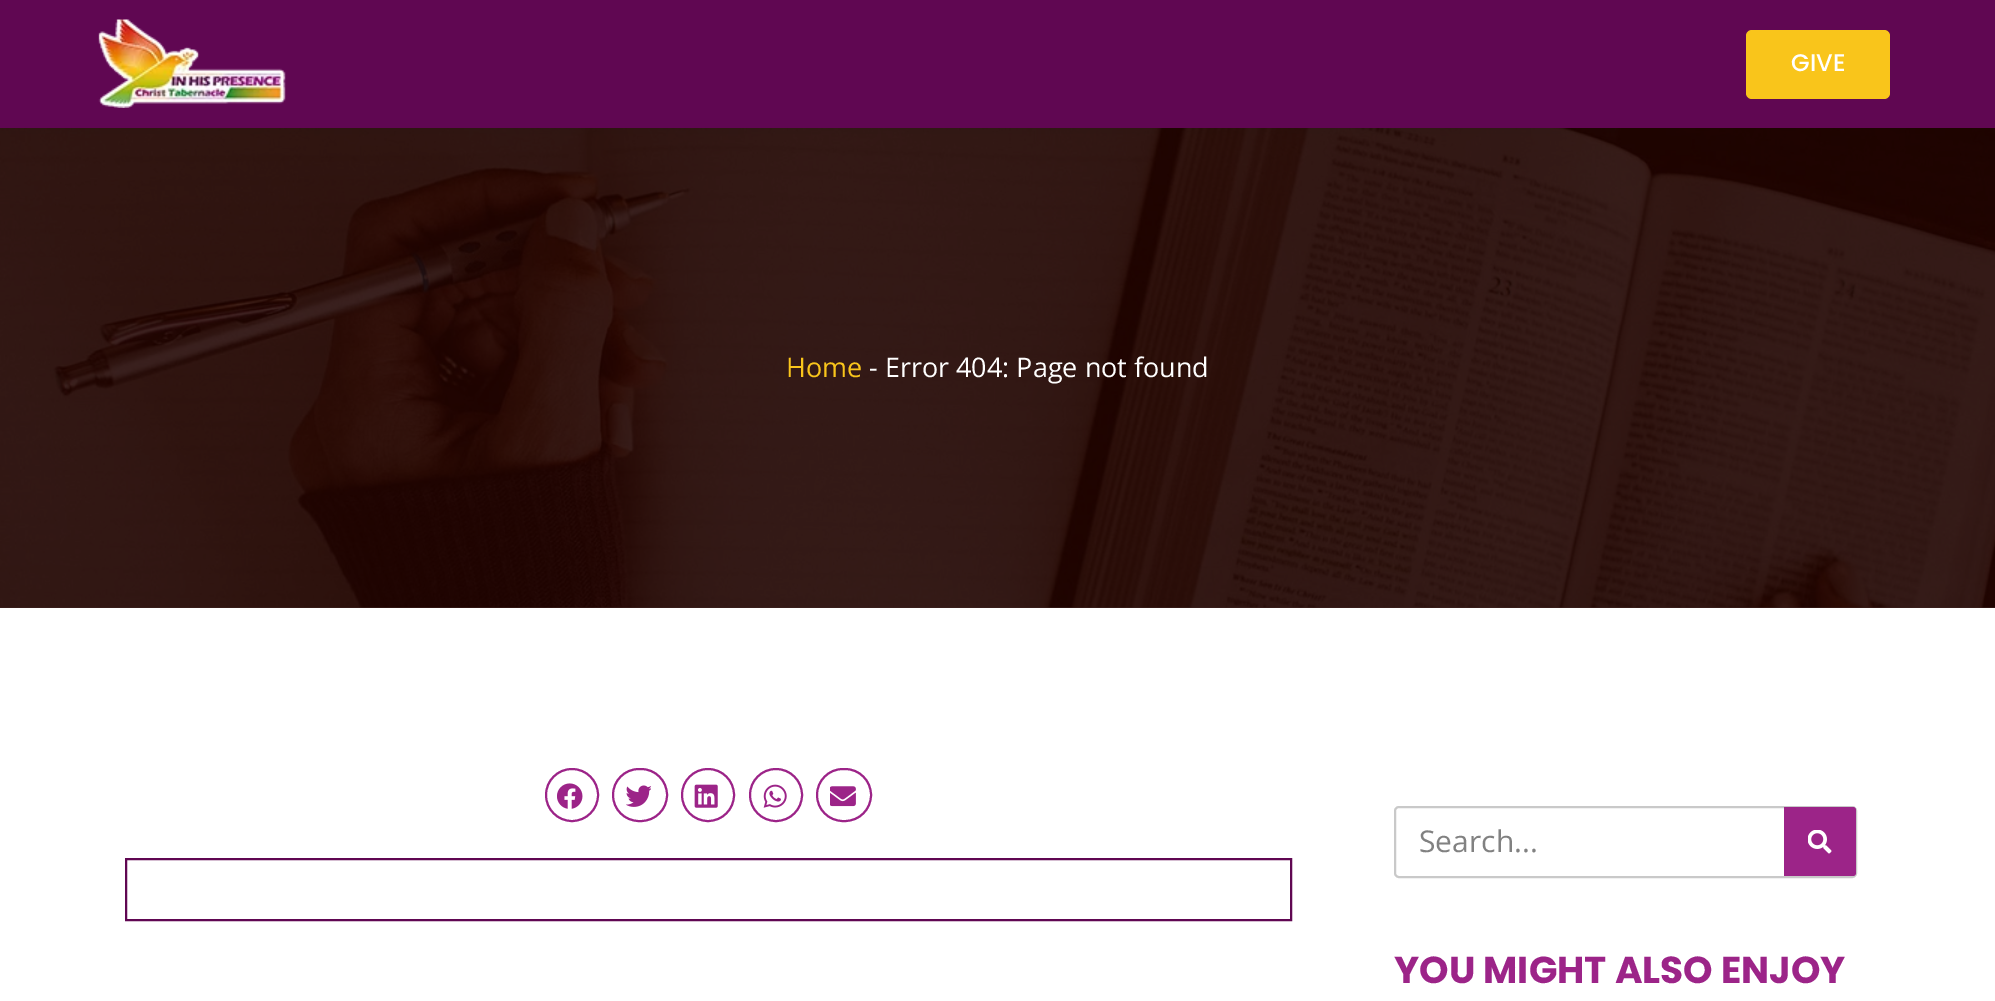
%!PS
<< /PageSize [1995 1001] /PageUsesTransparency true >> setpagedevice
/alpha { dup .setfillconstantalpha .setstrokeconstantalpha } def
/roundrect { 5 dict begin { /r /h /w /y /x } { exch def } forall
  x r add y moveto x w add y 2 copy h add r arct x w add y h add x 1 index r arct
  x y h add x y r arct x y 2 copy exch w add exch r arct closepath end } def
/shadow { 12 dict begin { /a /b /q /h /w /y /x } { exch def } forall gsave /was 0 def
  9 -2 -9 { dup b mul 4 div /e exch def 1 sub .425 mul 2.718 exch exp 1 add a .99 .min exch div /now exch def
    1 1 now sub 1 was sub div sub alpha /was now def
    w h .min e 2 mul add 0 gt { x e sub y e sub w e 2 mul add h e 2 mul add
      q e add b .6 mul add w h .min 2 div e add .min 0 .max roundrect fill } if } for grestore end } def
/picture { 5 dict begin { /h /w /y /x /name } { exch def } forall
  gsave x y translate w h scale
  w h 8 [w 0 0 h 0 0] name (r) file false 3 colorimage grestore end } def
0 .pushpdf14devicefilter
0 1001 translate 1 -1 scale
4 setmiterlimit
1 setgray
0 0 1995 1001 rectfill
0.243 0.141 0.129 setrgbcolor
0 607 1995 1 rectfill
(img2.rgb) 0 128 1995 480 picture
0 setgray
0 0 1995 128 0 7.5 0.1 shadow
0.376 0.027 0.322 setrgbcolor
0 0 1995 128 rectfill
(img1.rgb) 98 19 188 89 picture
0.976 0.773 0.106 setrgbcolor
1746 30 144 69 6 roundrect fill
/Poppins-Medium [24 0 0 -24 0 0] selectfont
1 setgray
1791 71 moveto (GIVE) show
/OpenSans-Regular [27 0 0 -27 0 0] selectfont
0.976 0.773 0.106 setrgbcolor
786 377 moveto (Home) show
1 setgray
869 377 moveto (- Error 404: Page not found) show
0.612 0.141 0.533 setrgbcolor
2 setlinewidth
newpath 572 795 26 0 360 arc closepath stroke
(img3.rgb) 557 783 26 26 picture
613 769 54 52 26 roundrect stroke
(img4.rgb) 626 785 25 22 picture
newpath 708 795 26 0 360 arc closepath stroke
(img5.rgb) 694 784 24 24 picture
newpath 776 795 26 0 360 arc closepath stroke
(img6.rgb) 763 784 24 24 picture
817 769 54 52 26 roundrect stroke
(img7.rgb) 830 786 26 21 picture
0.376 0.027 0.322 setrgbcolor
126 859 1165 61 rectstroke
0.788 setgray
1395 807 461 70 4 roundrect stroke
/OpenSans-Regular [30 0 0 -30 0 0] selectfont
0.506 setgray
1419 852 moveto (Search...) show
0.612 0.141 0.533 setrgbcolor
newpath 1784 807 moveto 1853 807 lineto 1854.5 807 1856 808.5 1856 810 curveto 1856 873 lineto 1856 874.5 1854.5 876 1853 876 curveto 1784 876 lineto closepath fill
(img8.rgb) 1808 830 24 24 picture
/Poppins-Bold [37.5 0 0 -37.5 0 0] selectfont
1394 983 moveto (YOU MIGHT ALSO ENJOY) show
.poppdf14devicefilter showpage
